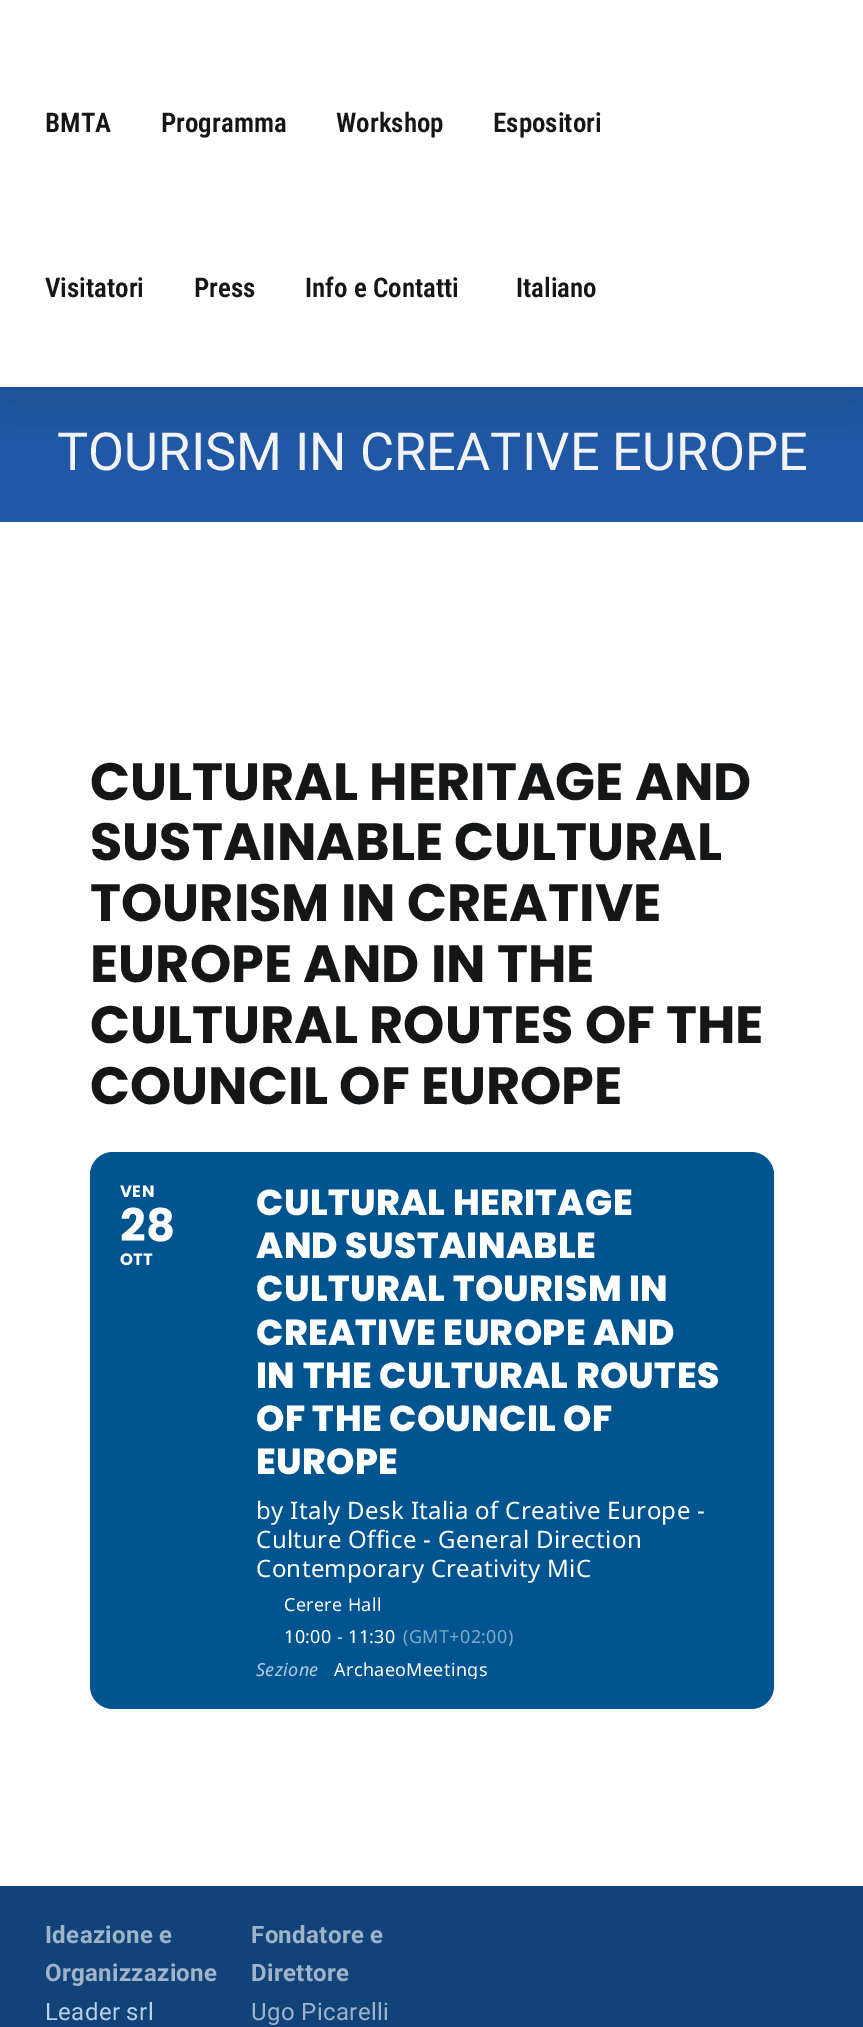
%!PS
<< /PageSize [863 2027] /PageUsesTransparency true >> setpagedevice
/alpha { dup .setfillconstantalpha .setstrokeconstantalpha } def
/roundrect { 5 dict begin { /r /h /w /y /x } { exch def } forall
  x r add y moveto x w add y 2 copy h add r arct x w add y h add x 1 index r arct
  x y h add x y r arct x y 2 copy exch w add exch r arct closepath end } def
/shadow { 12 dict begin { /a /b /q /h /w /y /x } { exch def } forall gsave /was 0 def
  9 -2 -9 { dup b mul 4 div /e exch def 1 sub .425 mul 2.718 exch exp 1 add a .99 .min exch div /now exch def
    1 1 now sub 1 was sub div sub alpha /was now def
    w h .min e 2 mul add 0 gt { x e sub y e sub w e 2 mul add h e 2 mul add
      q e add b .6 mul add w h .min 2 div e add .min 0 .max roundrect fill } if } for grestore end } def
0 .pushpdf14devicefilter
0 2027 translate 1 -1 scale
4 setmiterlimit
1 setgray
0 0 863 2027 rectfill
0.125 0.345 0.647 setrgbcolor
0 387 863 135 rectfill
gsave
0 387 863 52 rectclip
0 setgray
3 18 858 381 0 37.5 0.14 shadow
grestore
/RobotoCondensed-SemiBold [27 0 0 -27 0 0] selectfont
0.078 0.086 0.09 setrgbcolor
45 132 moveto (BMTA) show
161 132 moveto (Programma) show
336 132 moveto (Workshop) show
493 132 moveto (Espositori) show
45 297 moveto (Visitatori) show
194 297 moveto (Press) show
305 297 moveto (Info e Contatti) show
516 297 moveto (Italiano) show
/Roboto-Regular [52.5 0 0 -52.5 0 0] selectfont
0.949 0.953 0.961 setrgbcolor
57 470 moveto (TOURISM IN CREATIVE EUROPE) show
/Poppins-Bold [52.5 0 0 -52.5 0 0] selectfont
0.078 0.086 0.09 setrgbcolor
90 800 moveto (CULTURAL HERITAGE AND) show
90 860 moveto (SUSTAINABLE CULTURAL) show
90 921 moveto (TOURISM IN CREATIVE) show
90 982 moveto (EUROPE AND IN THE) show
90 1043 moveto (CULTURAL ROUTES OF THE) show
90 1104 moveto (COUNCIL OF EUROPE) show
0 0.329 0.565 setrgbcolor
90 1152 684 557 23 roundrect fill
/Poppins-Bold [16.5 0 0 -16.5 0 0] selectfont
1 setgray
120 1197 moveto 0.35 0 (VEN) ashow
/Poppins-Bold [45 0 0 -45 0 0] selectfont
120 1241 moveto 0.35 0 (28) ashow
/Poppins-Bold [16.5 0 0 -16.5 0 0] selectfont
120 1265 moveto 0.35 0 (OTT) ashow
/Poppins-ExtraBold [36 0 0 -36 0 0] selectfont
256 1215 moveto 0.35 0 (CULTURAL HERITAGE) ashow
256 1258 moveto 0.35 0 (AND SUSTAINABLE) ashow
256 1301 moveto 0.35 0 (CULTURAL TOURISM IN) ashow
256 1345 moveto 0.35 0 (CREATIVE EUROPE AND) ashow
256 1388 moveto 0.35 0 (IN THE CULTURAL ROUTES) ashow
256 1431 moveto 0.35 0 (OF THE COUNCIL OF) ashow
256 1474 moveto 0.35 0 (EUROPE) ashow
/NotoSans-Regular [24 0 0 -24 0 0] selectfont
256 1519 moveto 0.35 0 (by Italy Desk Italia of Creative Europe -) ashow
256 1548 moveto 0.35 0 (Culture Office - General Direction) ashow
256 1577 moveto 0.35 0 (Contemporary Creativity MiC) ashow
/NotoSans-Regular [18 0 0 -18 0 0] selectfont
284 1611 moveto 0.35 0 (Cerere Hall) ashow
284 1643 moveto 0.35 0 (10:00 - 11:30) ashow
0.502 0.667 0.784 setrgbcolor
403 1643 moveto 0.35 0 (\(GMT+02:00\)) ashow
/NotoSans-Italic [18 0 0 -18 0 0] selectfont
0.702 0.8 0.871 setrgbcolor
256 1676 moveto 0.35 0 (Sezione) ashow
gsave
257 1182 465 497 rectclip
/NotoSans-Regular [18 0 0 -18 0 0] selectfont
1 setgray
334 1676 moveto 0.35 0 (ArchaeoMeetings) ashow
grestore
0.067 0.263 0.471 setrgbcolor
0 1886 863 141 rectfill
/Roboto-Bold [24 0 0 -24 0 0] selectfont
0.627 0.706 0.788 setrgbcolor
45 1943 moveto 0.35 0 (Ideazione e) ashow
45 1981 moveto 0.35 0 (Organizzazione) ashow
/Roboto-Regular [24 0 0 -24 0 0] selectfont
0.725 0.82 0.918 setrgbcolor
45 2020 moveto 0.35 0 (Leader srl) ashow
/Roboto-Bold [24 0 0 -24 0 0] selectfont
0.627 0.706 0.788 setrgbcolor
251 1943 moveto 0.35 0 (Fondatore e) ashow
251 1981 moveto 0.35 0 (Direttore) ashow
/Roboto-Regular [24 0 0 -24 0 0] selectfont
251 2020 moveto 0.35 0 (Ugo Picarelli) ashow
.poppdf14devicefilter showpage
